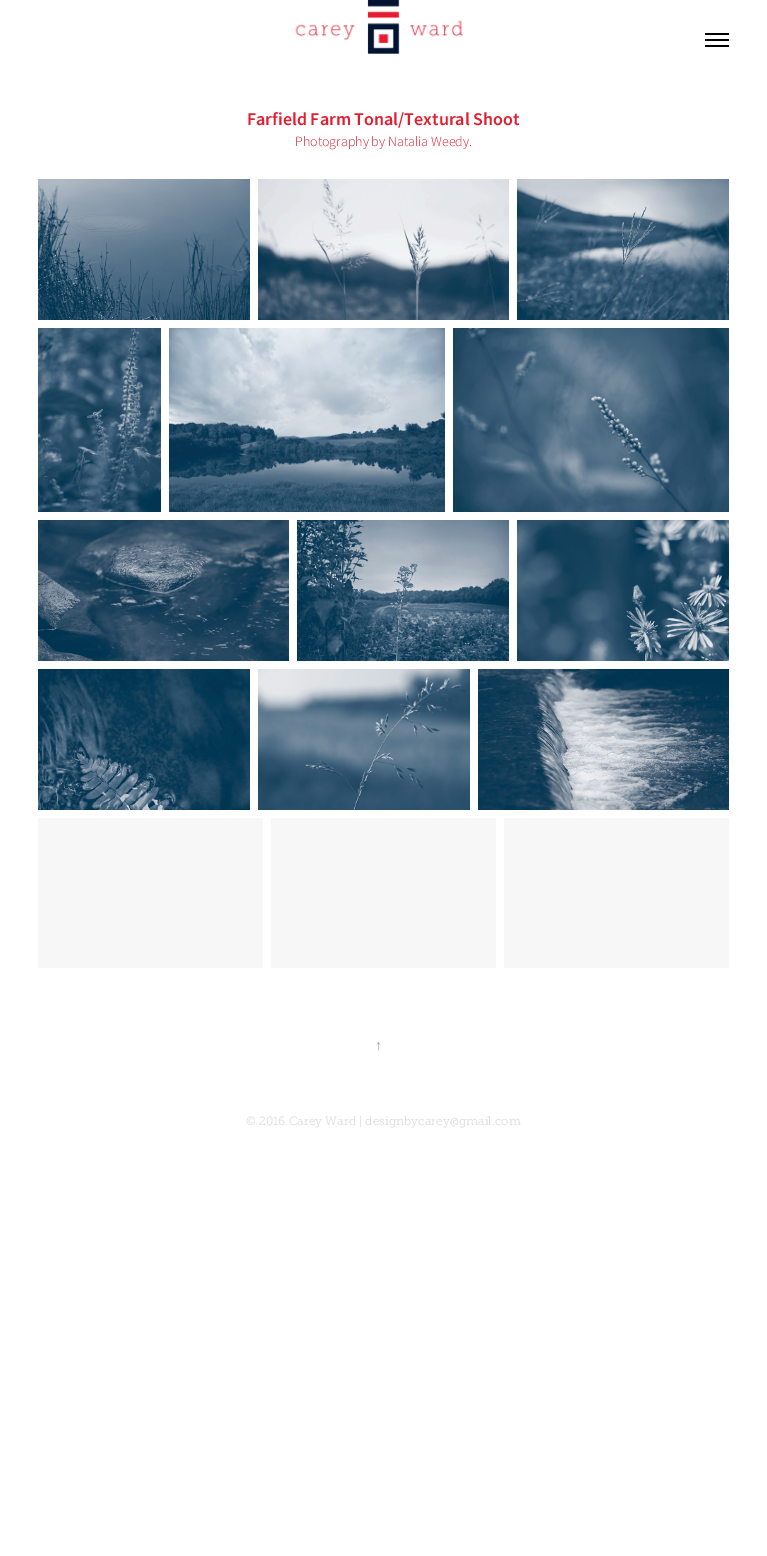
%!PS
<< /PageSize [767 1556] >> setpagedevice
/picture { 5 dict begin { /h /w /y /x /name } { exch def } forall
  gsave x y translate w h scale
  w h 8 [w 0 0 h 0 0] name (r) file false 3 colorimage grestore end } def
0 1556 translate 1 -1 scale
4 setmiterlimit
1 setgray
0 0 767 1556 rectfill
(img1.rgb) 295 0 168 54 picture
0 setgray
705 33 24 2 rectfill
705 39 24 2 rectfill
705 45 24 2 rectfill
/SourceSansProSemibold-SemiBold [18 0 0 -18 0 0] selectfont
0.886 0.118 0.188 setrgbcolor
247 125 moveto (Farfield Farm Tonal/Textural Shoot) show
/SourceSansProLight-Light [14 0 0 -14 0 0] selectfont
295 146 moveto (Photography by Natalia Weedy.) show
(img2.rgb) 38 179 212 141 picture
(img3.rgb) 258 179 251 141 picture
(img4.rgb) 517 179 212 141 picture
(img5.rgb) 38 328 123 184 picture
(img6.rgb) 169 328 276 184 picture
(img7.rgb) 453 328 276 184 picture
(img8.rgb) 38 520 251 141 picture
(img9.rgb) 297 520 212 141 picture
(img10.rgb) 517 520 212 141 picture
(img11.rgb) 38 669 212 141 picture
(img12.rgb) 258 669 212 141 picture
(img13.rgb) 478 669 251 141 picture
0.969 setgray
38 818 225 150 rectfill
271 818 225 150 rectfill
504 818 225 150 rectfill
/LiberationSerif-Regular [14 0 0 -14 0 0] selectfont
0.6 setgray
375 1050 moveto (↑) show
/MuseoSlab-Light [12 0 0 -12 0 0] selectfont
0.867 setgray
246 1125 moveto (© 2016 Carey Ward | designbycarey@gmail.com) show
showpage
